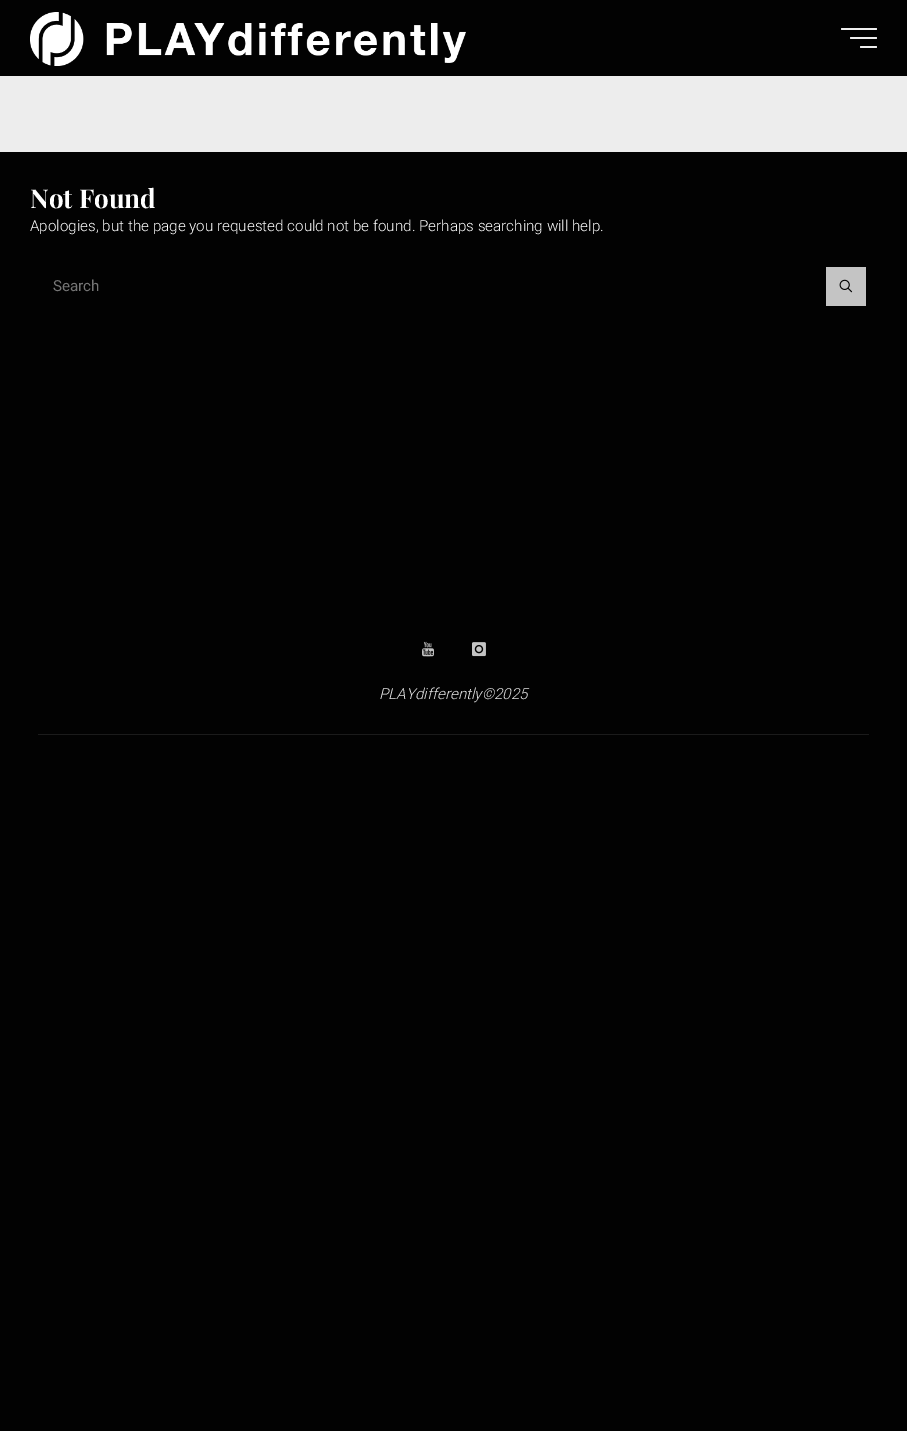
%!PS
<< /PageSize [907 1431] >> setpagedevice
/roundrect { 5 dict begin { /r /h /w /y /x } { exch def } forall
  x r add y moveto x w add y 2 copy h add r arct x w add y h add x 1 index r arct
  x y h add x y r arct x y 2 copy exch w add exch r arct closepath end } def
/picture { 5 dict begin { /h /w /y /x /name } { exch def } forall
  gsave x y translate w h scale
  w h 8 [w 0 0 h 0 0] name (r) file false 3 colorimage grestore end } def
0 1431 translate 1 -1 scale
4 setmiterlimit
0.008 setgray
0 0 907 1431 rectfill
0.929 setgray
0 76 907 76 rectfill
(img1.rgb) 30 12 436 54 picture
0.937 setgray
841 28 36 2 1 roundrect fill
850 37 27 2 1 roundrect fill
860 46 17 2 1 roundrect fill
/PlayfairDisplay-Bold [26 0 0 -26 0 0] selectfont
1 setgray
30 208 moveto (Not Found) show
/Roboto-Light [15.2 0 0 -15.2 0 0] selectfont
30 231 moveto (Apologies, but the page you requested could not be found. Perhaps searching will help.) show
/Roboto-Regular [15.2 0 0 -15.2 0 0] selectfont
0.459 setgray
53 291 moveto (Search) show
0.769 setgray
826 267 40 39 rectfill
(img2.rgb) 839 279 14 14 picture
(img3.rgb) 422 641 12 16 picture
(img4.rgb) 472 642 14 15 picture
/Roboto-LightItalic [15.2 0 0 -15.2 0 0] selectfont
0.898 setgray
379 699 moveto (PLAYdifferently©2025) show
0.106 setgray
38 734 831 1 rectfill
showpage
